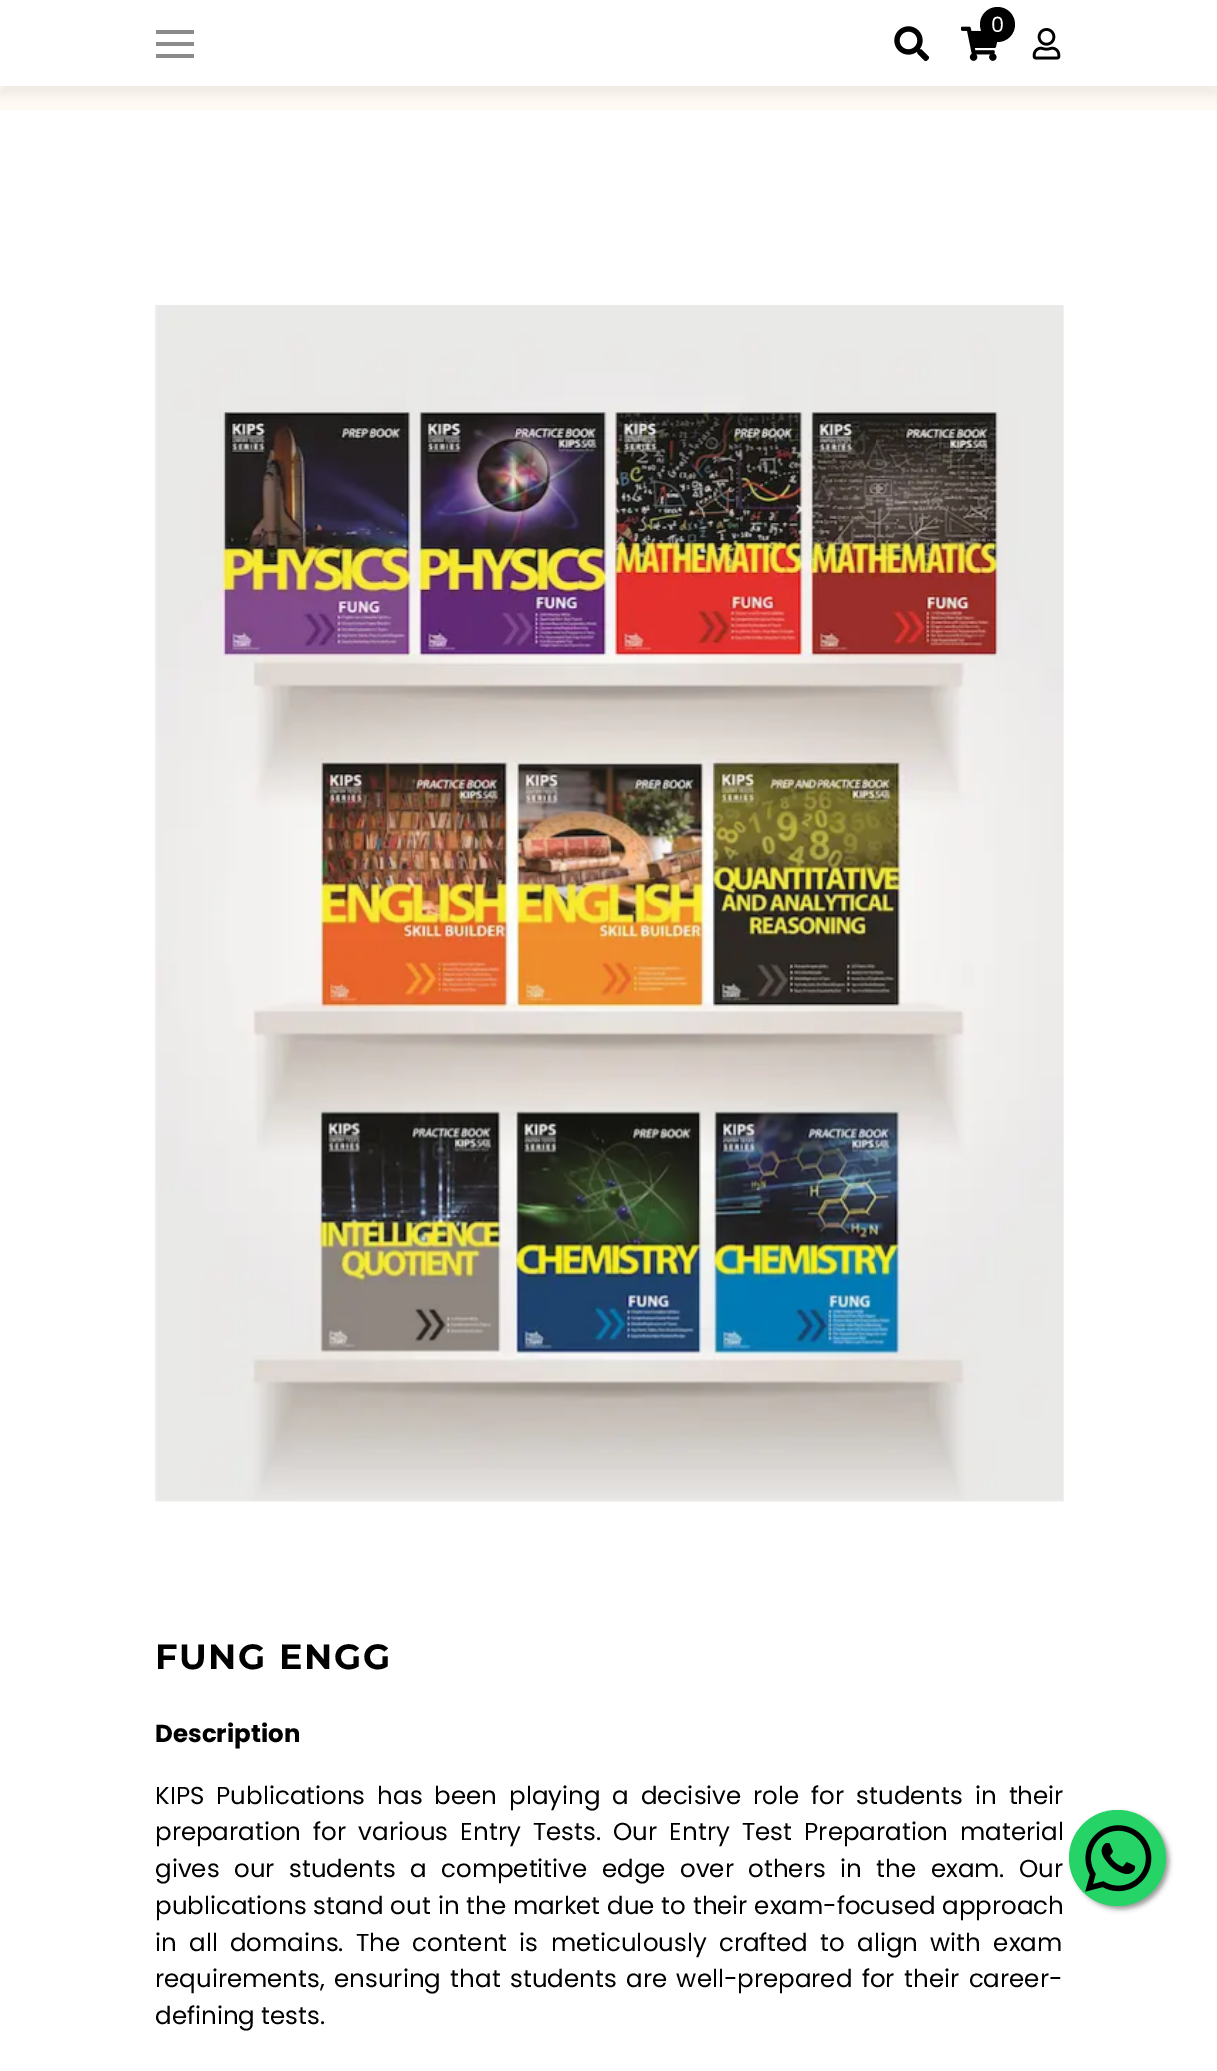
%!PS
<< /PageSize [1217 2071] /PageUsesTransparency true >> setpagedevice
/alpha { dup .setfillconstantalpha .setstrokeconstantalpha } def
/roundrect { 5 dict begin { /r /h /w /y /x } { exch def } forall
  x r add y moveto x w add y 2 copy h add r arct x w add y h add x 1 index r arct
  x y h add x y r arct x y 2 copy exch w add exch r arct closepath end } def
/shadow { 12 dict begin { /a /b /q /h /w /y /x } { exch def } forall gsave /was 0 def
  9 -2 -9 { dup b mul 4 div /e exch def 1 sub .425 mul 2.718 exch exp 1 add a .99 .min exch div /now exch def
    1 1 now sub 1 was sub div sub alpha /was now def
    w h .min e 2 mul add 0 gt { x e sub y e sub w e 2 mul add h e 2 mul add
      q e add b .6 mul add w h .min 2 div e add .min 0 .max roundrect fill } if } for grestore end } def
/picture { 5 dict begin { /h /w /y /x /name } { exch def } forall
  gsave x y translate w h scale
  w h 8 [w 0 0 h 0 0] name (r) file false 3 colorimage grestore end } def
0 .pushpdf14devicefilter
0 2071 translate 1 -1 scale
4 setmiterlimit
0.996 0.976 0.949 setrgbcolor
0 0 1217 2071 rectfill
0 setgray
0 9 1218 86 0 4.5 0.05 shadow
1 setgray
0 0 1217 86 rectfill
(img1.rgb) 961 26 37 35 picture
0 setgray
newpath 997.5 24.5 17.5 0 360 arc closepath fill
/Poppins-Regular [21 0 0 -21 0 0] selectfont
1 setgray
991 32 moveto (0) show
(img2.rgb) 894 26 35 35 picture
(img3.rgb) 1032 28 29 32 picture
0.545 setgray
156 30 38 4 rectfill
156 42 38 4 rectfill
156 54 38 4 rectfill
1 setgray
0 110 1217 1961 rectfill
(img4.rgb) 155 305 909 1197 picture
/Montserrat-Bold [35 0 0 -35 0 0] selectfont
0 setgray
155 1669 moveto 1.75 0 (FUNG ENGG) ashow
/Poppins-Bold [24.5 0 0 -24.5 0 0] selectfont
155 1742 moveto (Description) show
/Poppins-Regular [24.5 0 0 -24.5 0 0] selectfont
155 1804 moveto 5.5 0 32 (KIPS Publications has been playing a decisive role for students in their) widthshow
155 1840 moveto 5.75 0 32 (preparation for various Entry Tests. Our Entry Test Preparation material) widthshow
155 1877 moveto 8 0 32 (gives our students a competitive edge over others in the exam. Our) widthshow
155 1914 moveto 0.25 0 32 (publications stand out in the market due to their exam-focused approach) widthshow
155 1951 moveto 5.75 0 32 (in all domains. The content is meticulously crafted to align with exam) widthshow
155 1987 moveto 3 0 32 (requirements, ensuring that students are well-prepared for their career-) widthshow
155 2024 moveto (defining tests.) show
0.6 setgray
1073 1813 96 96 48 2.5 1 shadow
0.145 0.827 0.4 setrgbcolor
1069 1810 97 96 48 roundrect fill
(img5.rgb) 1085 1825 67 67 picture
.poppdf14devicefilter showpage
